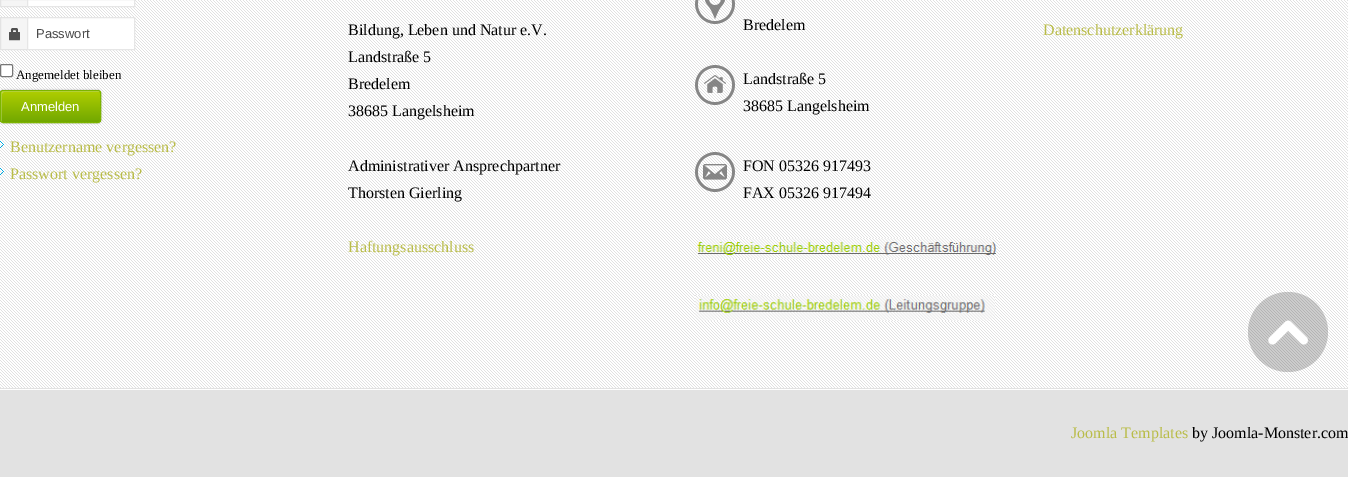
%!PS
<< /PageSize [1348 477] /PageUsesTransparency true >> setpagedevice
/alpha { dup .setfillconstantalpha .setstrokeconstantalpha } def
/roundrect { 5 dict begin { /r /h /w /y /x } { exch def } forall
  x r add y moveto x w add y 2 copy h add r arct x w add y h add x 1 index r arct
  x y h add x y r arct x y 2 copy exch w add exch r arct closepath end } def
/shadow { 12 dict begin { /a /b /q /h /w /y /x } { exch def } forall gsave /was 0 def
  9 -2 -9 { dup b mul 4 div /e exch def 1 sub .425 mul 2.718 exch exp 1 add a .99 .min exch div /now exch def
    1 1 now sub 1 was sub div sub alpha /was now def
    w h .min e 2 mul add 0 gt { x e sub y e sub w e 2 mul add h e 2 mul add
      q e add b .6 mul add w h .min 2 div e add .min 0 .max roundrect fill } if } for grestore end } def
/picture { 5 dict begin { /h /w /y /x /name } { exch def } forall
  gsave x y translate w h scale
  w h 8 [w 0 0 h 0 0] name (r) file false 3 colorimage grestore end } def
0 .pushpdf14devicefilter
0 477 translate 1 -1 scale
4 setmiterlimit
1 setgray
0 0 1348 477 rectfill
(img1.rgb) 0 0 1348 388 picture
0.961 setgray
newpath 0.5 -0.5 moveto 27.5 -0.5 lineto 27.5 6.5 lineto 0.5 6.5 lineto closepath gsave fill grestore
0.89 setgray
stroke
1 setgray
newpath 27.5 -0.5 moveto 134.5 -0.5 lineto 134.5 6.5 lineto 27.5 6.5 lineto closepath gsave fill grestore
0.902 setgray
stroke
0.961 setgray
newpath 0.5 17.5 moveto 27.5 17.5 lineto 27.5 49.5 lineto 0.5 49.5 lineto closepath gsave fill grestore
0.89 setgray
stroke
(img2.rgb) 9 28 11 13 picture
1 setgray
newpath 27.5 17.5 moveto 134.5 17.5 lineto 134.5 49.5 lineto 27.5 49.5 lineto closepath gsave fill grestore
0.902 setgray
stroke
/LiberationSans-Regular [13 0 0 -13 0 0] selectfont
0.294 setgray
36 38 moveto (Passwort) show
1 setgray
0.5 64.5 12 12 1.5 roundrect gsave fill grestore
0.463 setgray
stroke
/LiberationSerif-Regular [13 0 0 -13 0 0] selectfont
0 setgray
16 79 moveto (Angemeldet bleiben) show
0 90 101 33 3 1 0.3 shadow
gsave
0 90 101 33 3 roundrect clip newpath
gsave newpath 0 91 moveto 101 91 lineto 101 122 lineto 0 122 lineto closepath clip newpath
<< /ShadingType 2 /ColorSpace /DeviceRGB /Coords [51 91 51 122] /Extend [true true] /Function << /FunctionType 2 /Domain [0 1] /C0 [0.686 0.808 0.004] /C1 [0.447 0.659 0] /N 1 >> >> shfill grestore
grestore
0.3 alpha
1 setgray
newpath 4 92 moveto 100 92 lineto 100 92 99 91 98 91 curveto 3 91 lineto 2 91 1 92 1 93 curveto 1 120 lineto 1 121 2 122 2 122 curveto 2 98 lineto 2 97 1 92 4 92 curveto closepath fill
1 alpha
0.486 0.706 0 setrgbcolor
0.5 90.5 100 32 2.5 roundrect stroke
/LiberationSans-Regular [13 0 0 -13 0 0] selectfont
1 setgray
21 111 moveto (Anmelden) show
(img3.rgb) 0 141 4 7 picture
/LiberationSerif-Regular [16 0 0 -16 0 0] selectfont
0.725 0.737 0.286 setrgbcolor
10 152 moveto (Benutzername vergessen?) show
(img3.rgb) 0 168 4 7 picture
10 179 moveto (Passwort vergessen?) show
0 setgray
348 35 moveto (Bildung, Leben und Natur e.V.) show
348 62 moveto (Landstraße 5) show
348 89 moveto (Bredelem) show
348 116 moveto (38685 Langelsheim) show
348 171 moveto (Administrativer Ansprechpartner) show
348 198 moveto (Thorsten Gierling) show
0.725 0.737 0.286 setrgbcolor
348 252 moveto (Haftungsausschluss) show
(img4.rgb) 695 0 40 24 picture
0 setgray
743 30 moveto (Bredelem) show
(img5.rgb) 695 65 40 40 picture
743 84 moveto (Landstraße 5) show
743 111 moveto (38685 Langelsheim) show
(img6.rgb) 695 152 40 40 picture
743 171 moveto (FON 05326 917493) show
743 198 moveto (FAX 05326 917494) show
(img7.rgb) 697 238 303 21 picture
(img8.rgb) 695 295 300 26 picture
0.725 0.737 0.286 setrgbcolor
1043 35 moveto (Datenschutzerklärung) show
0.2 alpha
0 setgray
newpath 1288 332 40 0 360 arc closepath fill
1 alpha
(img9.rgb) 1268 320 40 25 picture
0.886 setgray
0 388 1348 89 rectfill
1 setgray
0 389 1348 1 rectfill
0.725 0.737 0.286 setrgbcolor
1071 438 moveto (Joomla Templates) show
0 setgray
1192 438 moveto (by Joomla-Monster.com) show
.poppdf14devicefilter showpage
